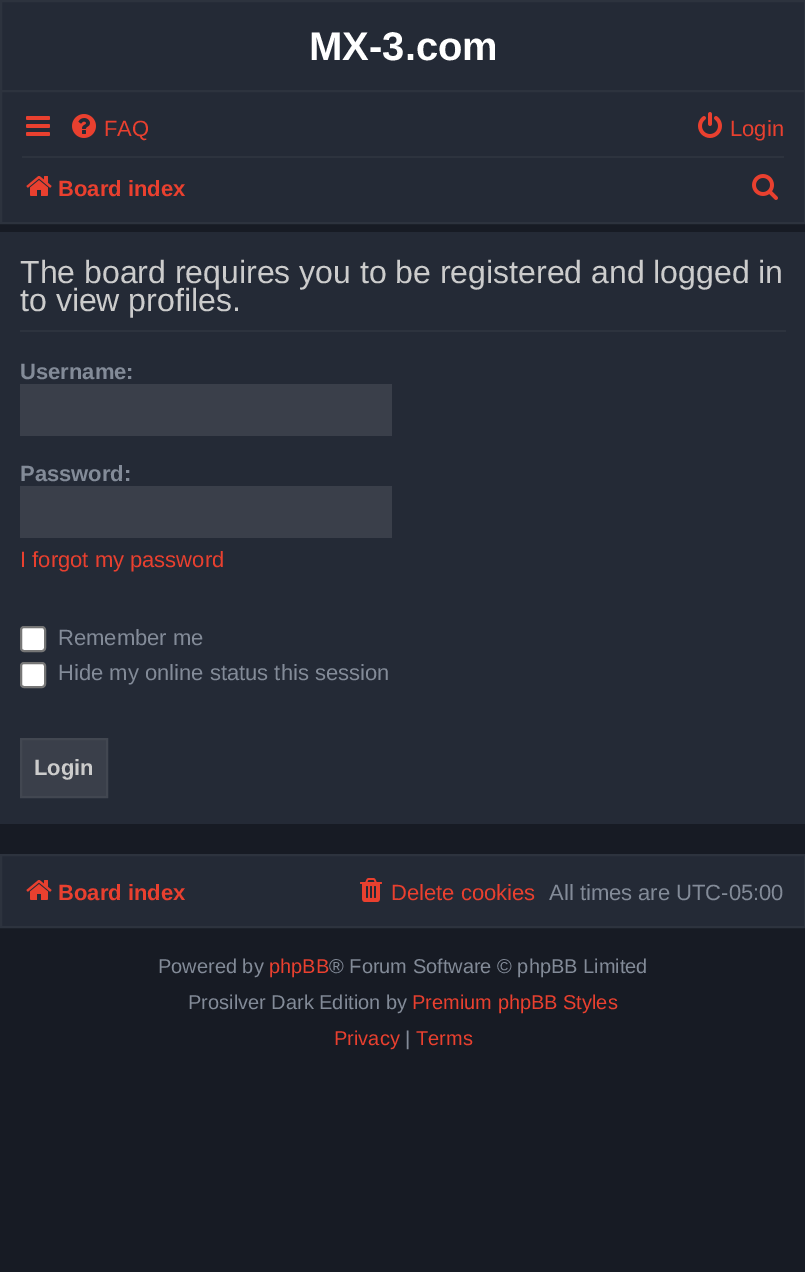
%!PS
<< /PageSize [805 1272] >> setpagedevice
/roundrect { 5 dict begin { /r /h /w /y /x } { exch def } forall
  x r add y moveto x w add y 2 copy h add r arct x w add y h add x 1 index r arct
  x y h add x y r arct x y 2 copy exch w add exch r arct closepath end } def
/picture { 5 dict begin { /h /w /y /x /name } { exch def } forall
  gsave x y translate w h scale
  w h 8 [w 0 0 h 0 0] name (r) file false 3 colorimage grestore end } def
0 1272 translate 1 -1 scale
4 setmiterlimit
0.09 0.106 0.141 setrgbcolor
0 0 805 1272 rectfill
0.141 0.165 0.212 setrgbcolor
newpath 1 1 moveto 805 1 lineto 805 91 lineto 1 91 lineto closepath gsave fill grestore
0.176 0.2 0.243 setrgbcolor
2 setlinewidth
stroke
/LiberationSans-Bold [40 0 0 -40 0 0] selectfont
1 setgray
309 60 moveto (MX-3.com) show
0.141 0.165 0.212 setrgbcolor
newpath 1 91 moveto 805 91 lineto 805 223 lineto 1 223 lineto closepath gsave fill grestore
0.176 0.2 0.243 setrgbcolor
stroke
(img1.rgb) 26 116 24 20 picture
(img2.rgb) 72 114 24 24 picture
/LiberationSans-Regular [22 0 0 -22 0 0] selectfont
0.914 0.251 0.184 setrgbcolor
104 136 moveto (FAQ) show
(img3.rgb) 698 112 24 26 picture
730 136 moveto (Login) show
0.176 0.2 0.243 setrgbcolor
22 156 762 2 rectfill
(img4.rgb) 26 176 26 20 picture
/LiberationSans-Bold [22 0 0 -22 0 0] selectfont
0.914 0.251 0.184 setrgbcolor
58 196 moveto (Board index) show
(img5.rgb) 752 174 26 26 picture
0.141 0.165 0.212 setrgbcolor
0 232 805 592 rectfill
0.176 0.2 0.243 setrgbcolor
20 330 766 2 rectfill
/LiberationSans-Regular [32 0 0 -32 0 0] selectfont
0.8 setgray
20 283 moveto (The board requires you to be registered and logged in) show
20 311 moveto (to view profiles.) show
/LiberationSans-Bold [22 0 0 -22 0 0] selectfont
0.514 0.545 0.596 setrgbcolor
20 379 moveto (Username:) show
0.227 0.247 0.29 setrgbcolor
20 384 372 52 rectfill
0.514 0.545 0.596 setrgbcolor
20 481 moveto (Password:) show
0.227 0.247 0.29 setrgbcolor
20 486 372 52 rectfill
/LiberationSans-Regular [22 0 0 -22 0 0] selectfont
0.914 0.251 0.184 setrgbcolor
20 567 moveto (I forgot my password) show
1 setgray
21 627 24 24 3 roundrect gsave fill grestore
0.463 setgray
stroke
0.514 0.545 0.596 setrgbcolor
58 645 moveto (Remember me) show
1 setgray
21 663 24 24 3 roundrect gsave fill grestore
0.463 setgray
stroke
0.514 0.545 0.596 setrgbcolor
58 680 moveto (Hide my online status this session) show
0.227 0.247 0.29 setrgbcolor
newpath 21 739 moveto 107 739 lineto 107 797 lineto 21 797 lineto closepath gsave fill grestore
0.259 0.278 0.318 setrgbcolor
stroke
/LiberationSans-Bold [22 0 0 -22 0 0] selectfont
0.8 setgray
34 775 moveto (Login) show
0.141 0.165 0.212 setrgbcolor
newpath 1 855 moveto 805 855 lineto 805 927 lineto 1 927 lineto closepath gsave fill grestore
0.176 0.2 0.243 setrgbcolor
stroke
(img4.rgb) 26 880 26 20 picture
0.914 0.251 0.184 setrgbcolor
58 900 moveto (Board index) show
(img6.rgb) 360 878 22 24 picture
/LiberationSans-Regular [22 0 0 -22 0 0] selectfont
391 900 moveto (Delete cookies) show
0.514 0.545 0.596 setrgbcolor
549 900 moveto (All times are UTC-05:00) show
/LiberationSans-Regular [20 0 0 -20 0 0] selectfont
158 973 moveto (Powered by) show
0.914 0.251 0.184 setrgbcolor
269 973 moveto (phpBB) show
0.514 0.545 0.596 setrgbcolor
329 973 moveto (® Forum Software © phpBB Limited) show
188 1009 moveto (Prosilver Dark Edition by) show
0.914 0.251 0.184 setrgbcolor
412 1009 moveto (Premium phpBB Styles) show
334 1045 moveto (Privacy) show
0.514 0.545 0.596 setrgbcolor
405 1045 moveto (|) show
0.914 0.251 0.184 setrgbcolor
416 1045 moveto (Terms) show
showpage
